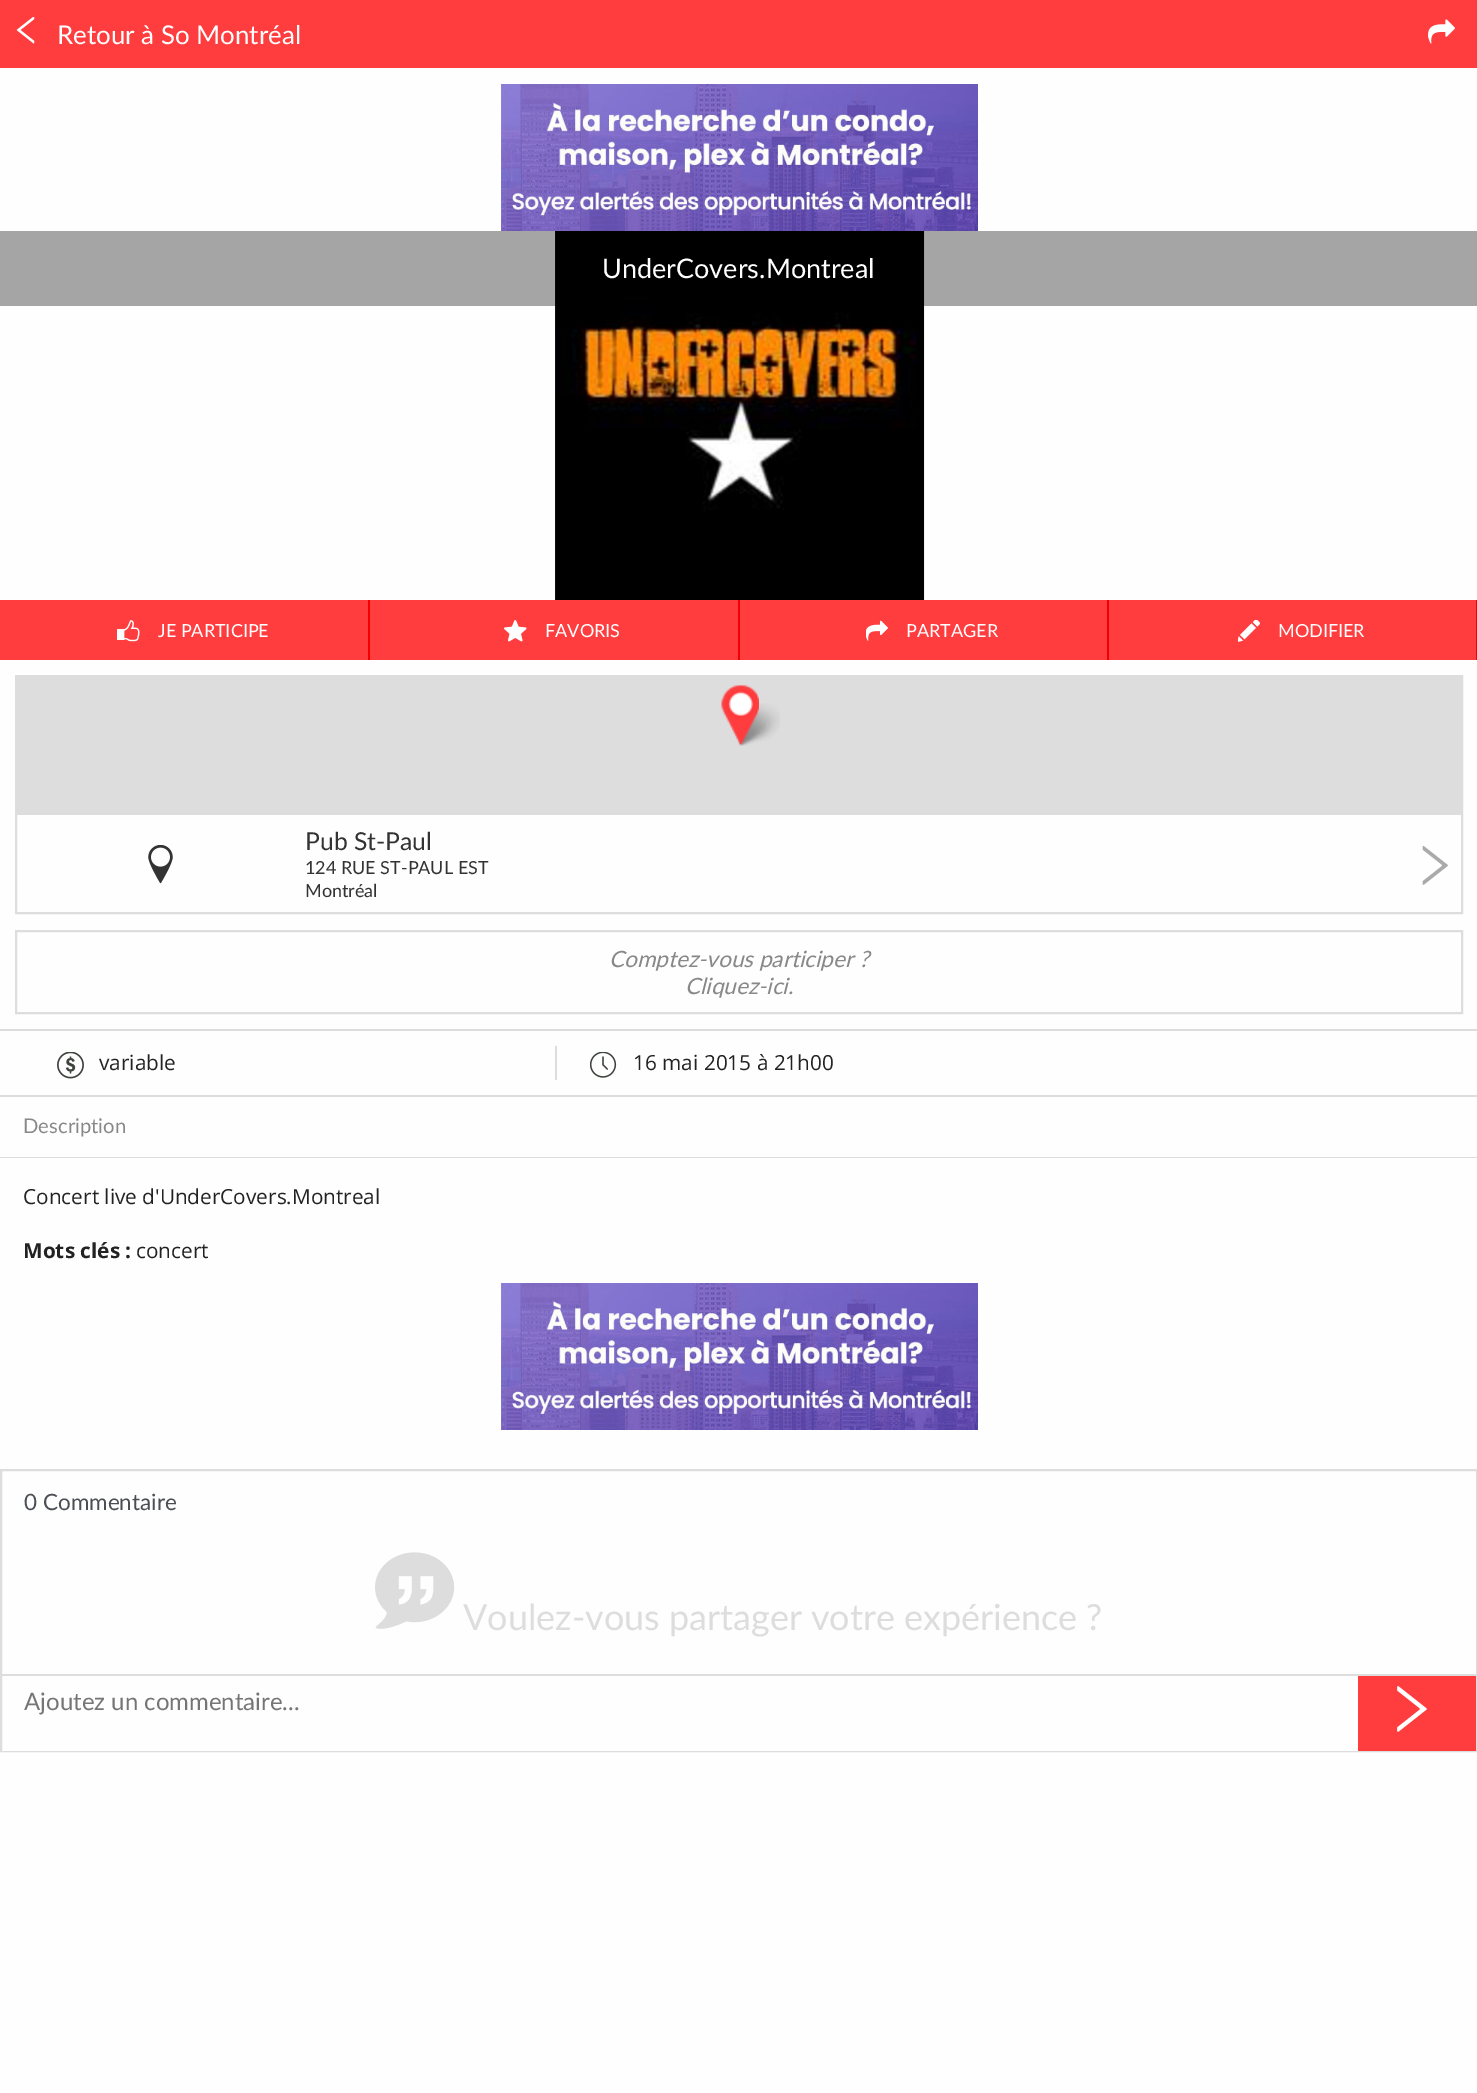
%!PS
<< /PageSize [1477 2093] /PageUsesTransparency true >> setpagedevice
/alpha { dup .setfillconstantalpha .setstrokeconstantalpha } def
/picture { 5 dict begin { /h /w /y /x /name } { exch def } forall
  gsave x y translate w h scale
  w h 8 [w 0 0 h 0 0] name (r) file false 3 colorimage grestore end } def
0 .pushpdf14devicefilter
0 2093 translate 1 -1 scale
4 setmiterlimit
0.996 setgray
0 0 1477 2093 rectfill
1 0.235 0.243 setrgbcolor
0 0 1477 68 rectfill
(img1.rgb) 16 17 19 27 picture
/Lato-Regular [25.9 0 0 -25.9 0 0] selectfont
1 setgray
57 44 moveto (Retour à So Montréal) show
(img2.rgb) 1428 19 27 25 picture
(img3.rgb) 501 84 477 147 picture
(img4.rgb) 555 231 370 369 picture
0.35 alpha
0 setgray
0 231 1477 75 rectfill
/Lato-Regular [27 0 0 -27 0 0] selectfont
1 alpha
1 setgray
602 278 moveto (UnderCovers.Montreal) show
1 0.235 0.243 setrgbcolor
0 600 1476 60 rectfill
0.937 0 0.008 setrgbcolor
368 600 2 60 rectfill
(img5.rgb) 117 620 23 22 picture
/Lato-Regular [18 0 0 -18 0 0] selectfont
1 setgray
158 637 moveto (JE PARTICIPE) show
0.937 0 0.008 setrgbcolor
738 600 2 60 rectfill
(img6.rgb) 504 620 23 22 picture
1 setgray
545 637 moveto (FAVORIS) show
0.937 0 0.008 setrgbcolor
1107 600 2 60 rectfill
(img7.rgb) 866 620 22 21 picture
1 setgray
906 637 moveto (PARTAGER) show
0.937 0 0.008 setrgbcolor
1476 600 1 60 rectfill
(img8.rgb) 1238 620 22 22 picture
1 setgray
1278 637 moveto (MODIFIER) show
0.867 setgray
2 setlinewidth
16 676 1446 237 rectstroke
17 677 1444 138 rectfill
(img10.rgb) 735 703 45 43 picture
(img9.rgb) 721 684 38 62 picture
(img11.rgb) 148 845 25 39 picture
/Lato-Regular [24.75 0 0 -24.75 0 0] selectfont
0.2 setgray
305 850 moveto (Pub St-Paul) show
/Lato-Regular [18 0 0 -18 0 0] selectfont
305 874 moveto (124 RUE ST-PAUL EST) show
305 897 moveto (Montréal) show
(img12.rgb) 1422 846 26 39 picture
0.867 setgray
16 931 1446 82 rectstroke
/Lato-Italic [22.5 0 0 -22.5 0 0] selectfont
0.533 setgray
609 967 moveto (Comptez-vous participer ?) show
685 994 moveto (Cliquez-ici.) show
0.867 setgray
0 1029 1477 2 rectfill
0 1095 1477 2 rectfill
555 1046 2 34 rectfill
(img13.rgb) 57 1052 27 27 picture
/OpenSans-Regular [20.8 0 0 -20.8 0 0] selectfont
0.133 setgray
99 1070 moveto (variable) show
(img14.rgb) 590 1052 27 26 picture
633 1070 moveto (16 mai 2015 à 21h00) show
0.867 setgray
0 1157 1477 1 rectfill
/Lato-Regular [20.25 0 0 -20.25 0 0] selectfont
0.533 setgray
23 1133 moveto (Description) show
/OpenSans-Regular [20.8 0 0 -20.8 0 0] selectfont
0.133 setgray
23 1204 moveto (Concert live d'UnderCovers.Montreal) show
/OpenSans-Bold [20.8 0 0 -20.8 0 0] selectfont
23 1258 moveto (Mots clés :) show
/OpenSans-Regular [20.8 0 0 -20.8 0 0] selectfont
136 1258 moveto (concert) show
(img15.rgb) 501 1283 477 147 picture
0.867 setgray
1 1470 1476 281 rectstroke
/Lato-Regular [22.5 0 0 -22.5 0 0] selectfont
0.294 0.31 0.329 setrgbcolor
24 1510 moveto (0 Commentaire) show
(img16.rgb) 375 1552 80 77 picture
/Lato-Regular [36 0 0 -36 0 0] selectfont
0.867 setgray
463 1630 moveto (Voulez-vous partager votre expérience ?) show
2 1674 1474 2 rectfill
1 setgray
2 1750 1356 1 rectfill
/Lato-Regular [24 0 0 -24 0 0] selectfont
0.459 setgray
24 1710 moveto (Ajoutez un commentaire...) show
1 0.235 0.243 setrgbcolor
1358 1676 118 75 rectfill
(img17.rgb) 1397 1686 30 46 picture
.poppdf14devicefilter showpage
